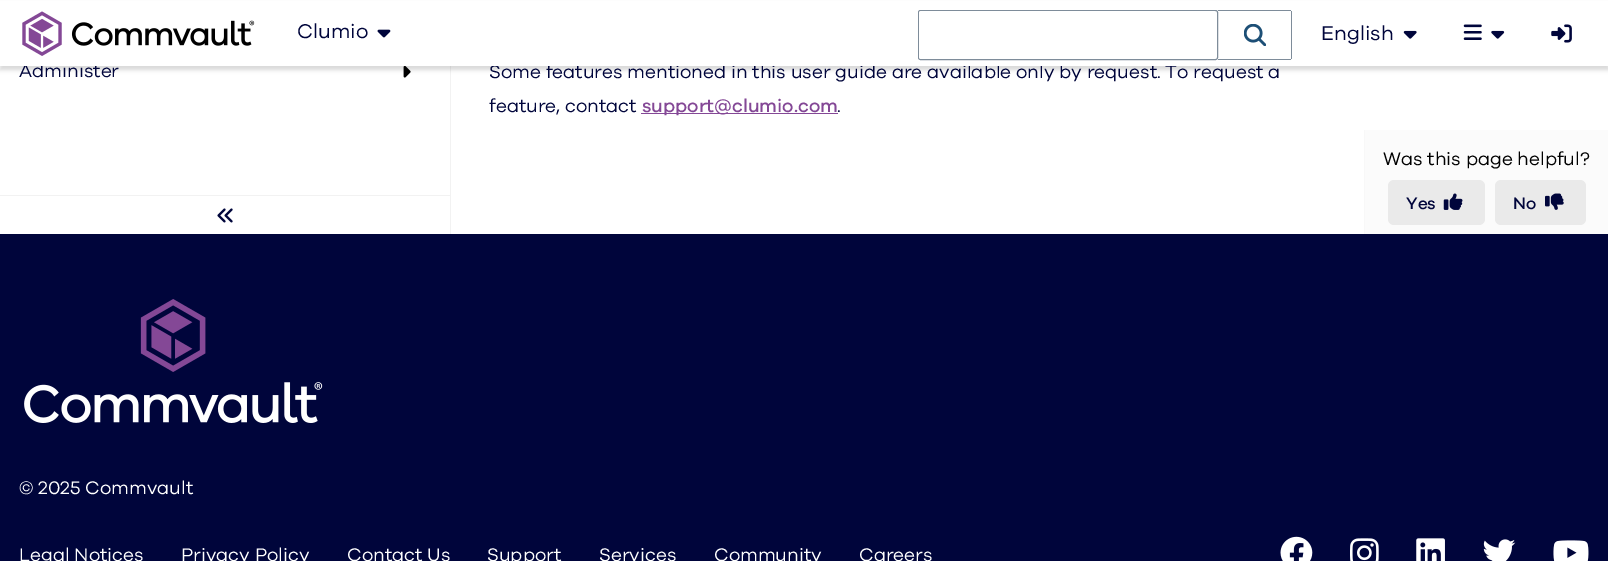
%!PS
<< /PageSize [1608 561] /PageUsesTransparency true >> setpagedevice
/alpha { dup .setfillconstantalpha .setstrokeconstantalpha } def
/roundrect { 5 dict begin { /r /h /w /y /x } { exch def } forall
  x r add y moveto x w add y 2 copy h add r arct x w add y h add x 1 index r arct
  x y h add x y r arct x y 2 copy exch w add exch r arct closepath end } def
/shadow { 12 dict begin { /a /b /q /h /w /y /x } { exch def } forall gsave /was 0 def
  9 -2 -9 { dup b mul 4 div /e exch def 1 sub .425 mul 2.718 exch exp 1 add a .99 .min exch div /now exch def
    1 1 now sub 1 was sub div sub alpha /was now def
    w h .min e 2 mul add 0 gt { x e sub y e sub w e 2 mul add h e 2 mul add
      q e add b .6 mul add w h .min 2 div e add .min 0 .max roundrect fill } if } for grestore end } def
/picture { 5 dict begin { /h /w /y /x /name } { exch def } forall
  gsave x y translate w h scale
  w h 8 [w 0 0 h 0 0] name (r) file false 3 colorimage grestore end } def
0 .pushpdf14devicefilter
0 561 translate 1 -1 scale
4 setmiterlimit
1 setgray
0 0 1608 561 rectfill
(img8.rgb) 403 66 8 12 picture
0.949 setgray
450 66 1 168 rectfill
0 setgray
0 4 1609 66 0 2 0.15 shadow
/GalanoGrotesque-Regular [18.75 0 0 -18.75 0 0] selectfont
0 0.02 0.231 setrgbcolor
19 77 moveto (Administer) show
489 78 moveto (Some features mentioned in this user guide are available only by request. To request a) show
1 setgray
0 1 1608 65 rectfill
(img1.rgb) 22 11 233 45 picture
/GalanoGrotesque-Regular [20.5 0 0 -20.5 0 0] selectfont
0 0.02 0.231 setrgbcolor
297 38 moveto (Clumio) show
(img2.rgb) 377 29 14 9 picture
0.494 0.549 0.604 setrgbcolor
918.5 10.5 299 49 2 roundrect stroke
1 setgray
919 11 297 48 2.5 roundrect fill
0.494 0.549 0.604 setrgbcolor
1218 10 73 1 rectfill
1291 11 1 48 rectfill
1218 59 73 1 rectfill
(img3.rgb) 1244 24 22 22 picture
0 0.02 0.231 setrgbcolor
1321 40 moveto (English) show
(img4.rgb) 1403 30 14 9 picture
(img5.rgb) 1463 24 19 16 picture
(img6.rgb) 1491 30 14 9 picture
(img7.rgb) 1551 24 21 19 picture
0.949 setgray
0 195 450 1 rectfill
(img9.rgb) 217 208 16 15 picture
/GalanoGrotesque-Regular [18.75 0 0 -18.75 0 0] selectfont
0 0.02 0.231 setrgbcolor
489 112 moveto (feature, contact) show
0.518 0.282 0.588 setrgbcolor
641 113 197 1 rectfill
/GalanoGrotesque-Medium [18.75 0 0 -18.75 0 0] selectfont
642 112 moveto (support@clumio.com) show
/GalanoGrotesque-Regular [18.75 0 0 -18.75 0 0] selectfont
0 0.02 0.231 setrgbcolor
837 112 moveto (.) show
0.984 setgray
1365 130 243 104 rectfill
0.973 setgray
1364 130 1 104 rectfill
0 setgray
1383 165 moveto (Was this page helpful?) show
0.918 setgray
1388 180 97 45 6 roundrect fill
/GalanoGrotesque-Medium [17 0 0 -17 0 0] selectfont
0 0.02 0.231 setrgbcolor
1406 209 moveto (Yes) show
(img10.rgb) 1443 193 20 17 picture
0.918 setgray
1495 180 91 45 6 roundrect fill
0 0.02 0.231 setrgbcolor
1513 209 moveto (No) show
(img11.rgb) 1545 193 19 17 picture
0 234 1608 327 rectfill
(img12.rgb) 24 299 299 124 picture
/GalanoGrotesque-Regular [18.75 0 0 -18.75 0 0] selectfont
1 setgray
19 494 moveto (© 2025 Commvault) show
19 561 moveto (Legal Notices) show
181 561 moveto (Privacy Policy) show
347 561 moveto (Contact Us) show
487 561 moveto (Support) show
599 561 moveto (Services) show
714 561 moveto (Community) show
859 561 moveto (Careers) show
(img13.rgb) 1280 536 33 25 picture
(img14.rgb) 1350 538 29 23 picture
(img15.rgb) 1416 538 29 23 picture
(img16.rgb) 1483 539 33 22 picture
(img17.rgb) 1553 540 36 21 picture
.poppdf14devicefilter showpage
